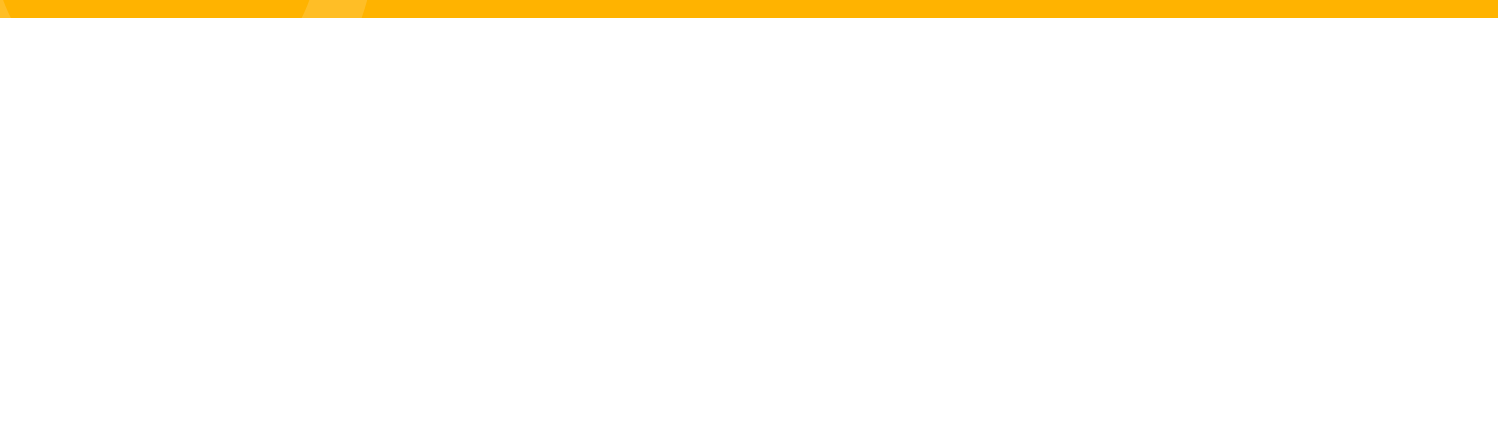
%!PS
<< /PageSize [1498 446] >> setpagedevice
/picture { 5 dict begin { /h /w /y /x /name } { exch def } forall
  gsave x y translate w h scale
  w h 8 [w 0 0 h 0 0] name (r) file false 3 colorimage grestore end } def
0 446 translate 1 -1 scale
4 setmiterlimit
1 setgray
0 0 1498 446 rectfill
1 0.702 0 setrgbcolor
0 0 1498 18 rectfill
(img1.rgb) 0 0 367 18 picture
showpage
